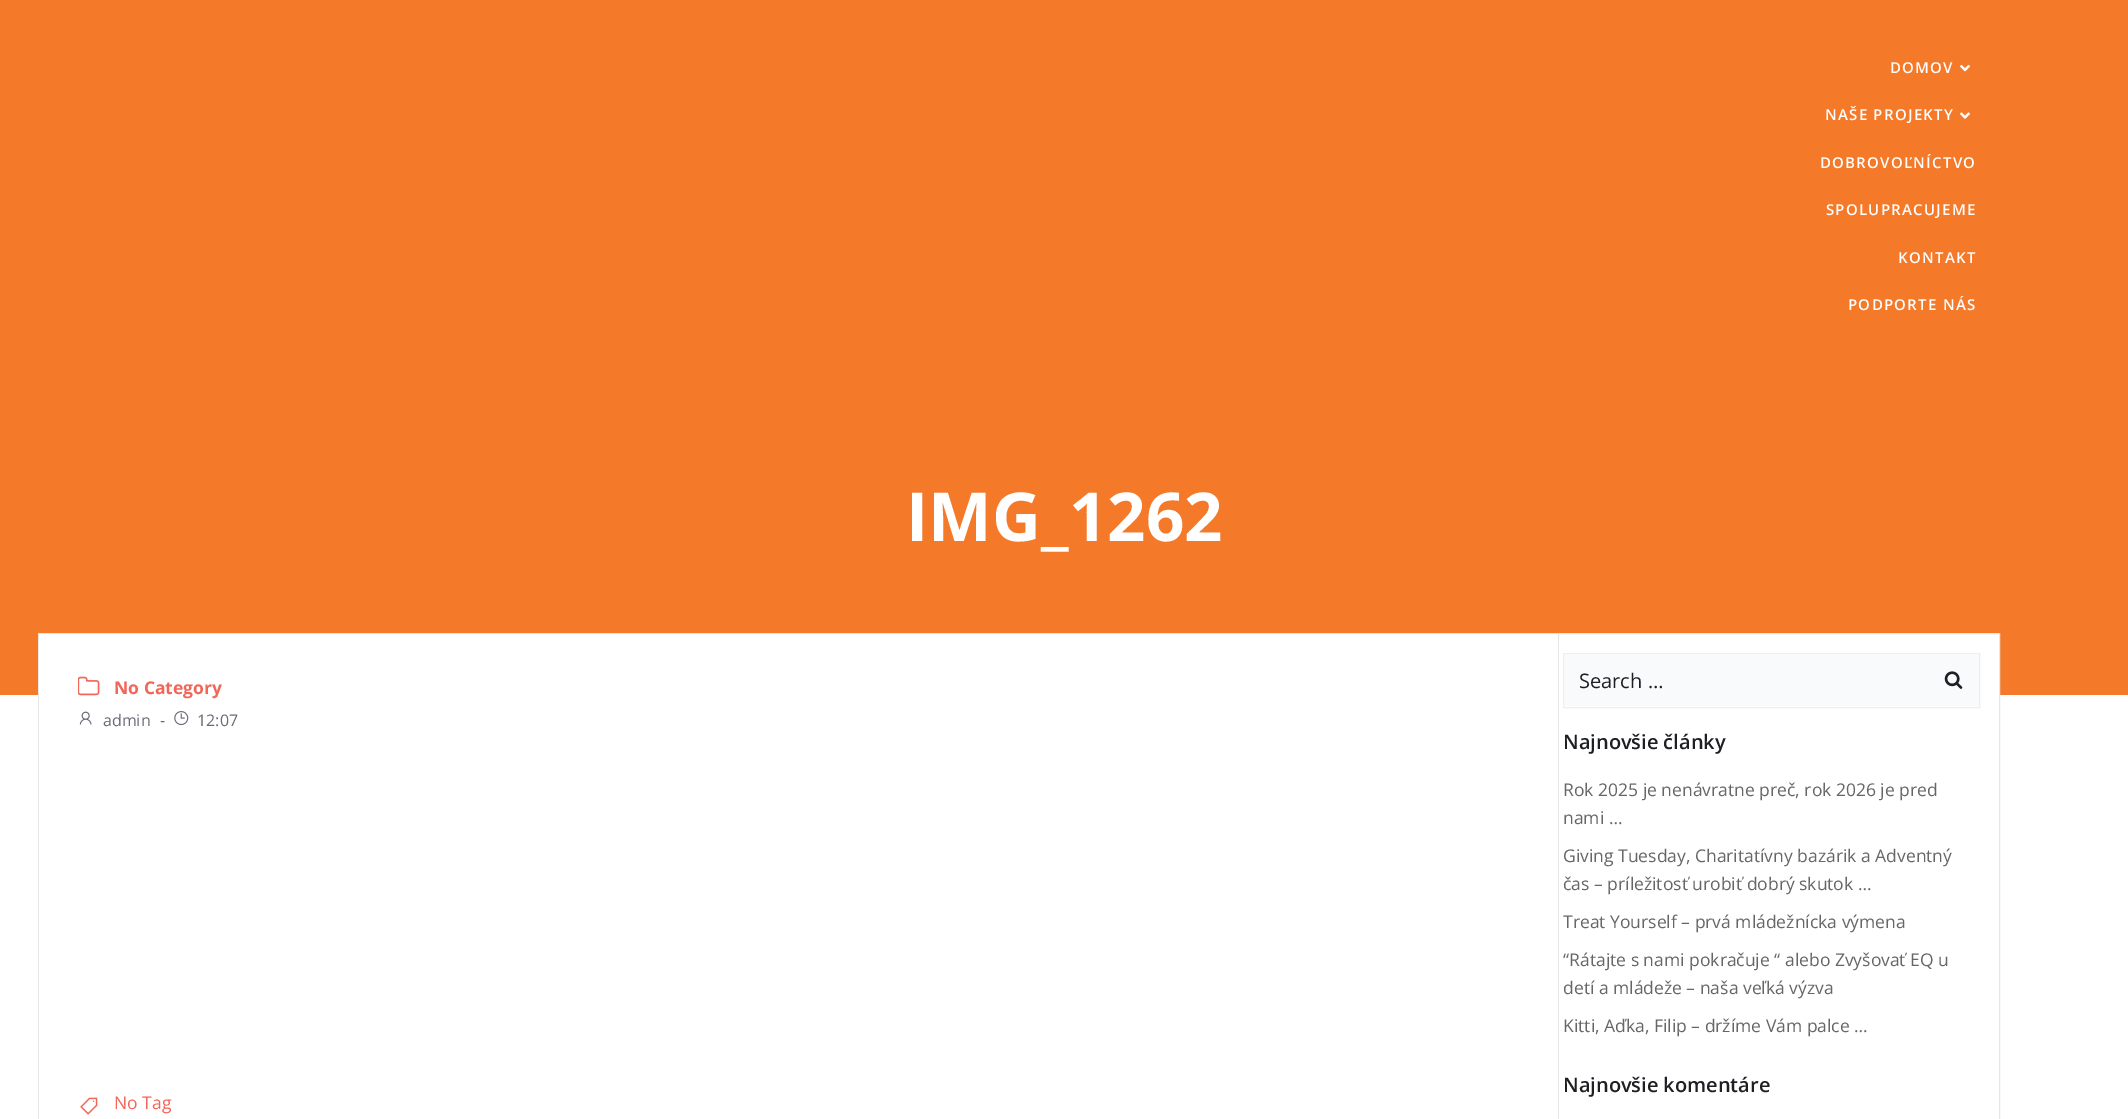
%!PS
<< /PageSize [2128 1119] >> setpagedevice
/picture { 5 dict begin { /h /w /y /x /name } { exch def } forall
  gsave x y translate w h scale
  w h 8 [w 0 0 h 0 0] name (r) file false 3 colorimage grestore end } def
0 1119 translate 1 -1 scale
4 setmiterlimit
1 setgray
0 0 2128 1119 rectfill
0.957 0.475 0.161 setrgbcolor
0 0 2128 695 rectfill
/OpenSans-SemiBold [15 0 0 -15 0 0] selectfont
1 setgray
1890 73 moveto 1.25 0 (DOMOV) ashow
(img1.rgb) 1960 64 10 8 picture
1825 120 moveto 1.25 0 (NAŠE PROJEKTY) ashow
(img2.rgb) 1960 112 10 7 picture
1820 168 moveto 1.25 0 (DOBROVOĽNÍCTVO) ashow
1826 215 moveto 1.25 0 (SPOLUPRACUJEME) ashow
1898 263 moveto 1.25 0 (KONTAKT) ashow
1848 310 moveto 1.25 0 (PODPORTE NÁS) ashow
/OpenSans-Bold [67.5 0 0 -67.5 0 0] selectfont
906 541 moveto (IMG_1262) show
1559 634 440 61 rectfill
0.902 setgray
1543.5 633.5 456 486 rectstroke
1 setgray
39 634 1519 485 rectfill
0.902 setgray
38 633 1505 1 rectfill
1558 633 1 486 rectfill
38 633 1 486 rectfill
(img3.rgb) 78 676 22 20 picture
/OpenSans-Bold [17.5 0 0 -17.5 0 0] selectfont
0.949 0.396 0.349 setrgbcolor
114 694 moveto (No Category) show
(img4.rgb) 79 711 13 14 picture
/OpenSans-Regular [16 0 0 -16 0 0] selectfont
0.412 0.424 0.467 setrgbcolor
103 726 moveto (admin) show
160 726 moveto (-) show
(img5.rgb) 174 711 15 15 picture
197 726 moveto (12:07) show
(img6.rgb) 80 1097 18 18 picture
/OpenSans-Regular [17.5 0 0 -17.5 0 0] selectfont
0.949 0.396 0.349 setrgbcolor
114 1109 moveto (No Tag) show
0.933 setgray
1563.5 653.5 416 54 rectstroke
0.976 0.98 0.984 setrgbcolor
1564 654 415 52 rectfill
/OpenSans-Regular [20 0 0 -20 0 0] selectfont
0.118 0.122 0.133 setrgbcolor
1579 688 moveto (Search …) show
(img7.rgb) 1944 671 19 18 picture
/OpenSans-SemiBold [20 0 0 -20 0 0] selectfont
1563 749 moveto (Najnovšie články) show
/OpenSans-Regular [17.5 0 0 -17.5 0 0] selectfont
0.4 setgray
1563 796 moveto (Rok 2025 je nenávratne preč, rok 2026 je pred) show
1563 824 moveto (nami …) show
1563 862 moveto (Giving Tuesday, Charitatívny bazárik a Adventný) show
1563 890 moveto (čas – príležitosť urobiť dobrý skutok …) show
1563 928 moveto (Treat Yourself – prvá mládežnícka výmena) show
1563 966 moveto (“Rátajte s nami pokračuje “ alebo Zvyšovať EQ u) show
1563 994 moveto (detí a mládeže – naša veľká výzva) show
1563 1032 moveto (Kitti, Aďka, Filip – držíme Vám palce …) show
/OpenSans-SemiBold [20 0 0 -20 0 0] selectfont
0.118 0.122 0.133 setrgbcolor
1563 1092 moveto (Najnovšie komentáre) show
showpage
